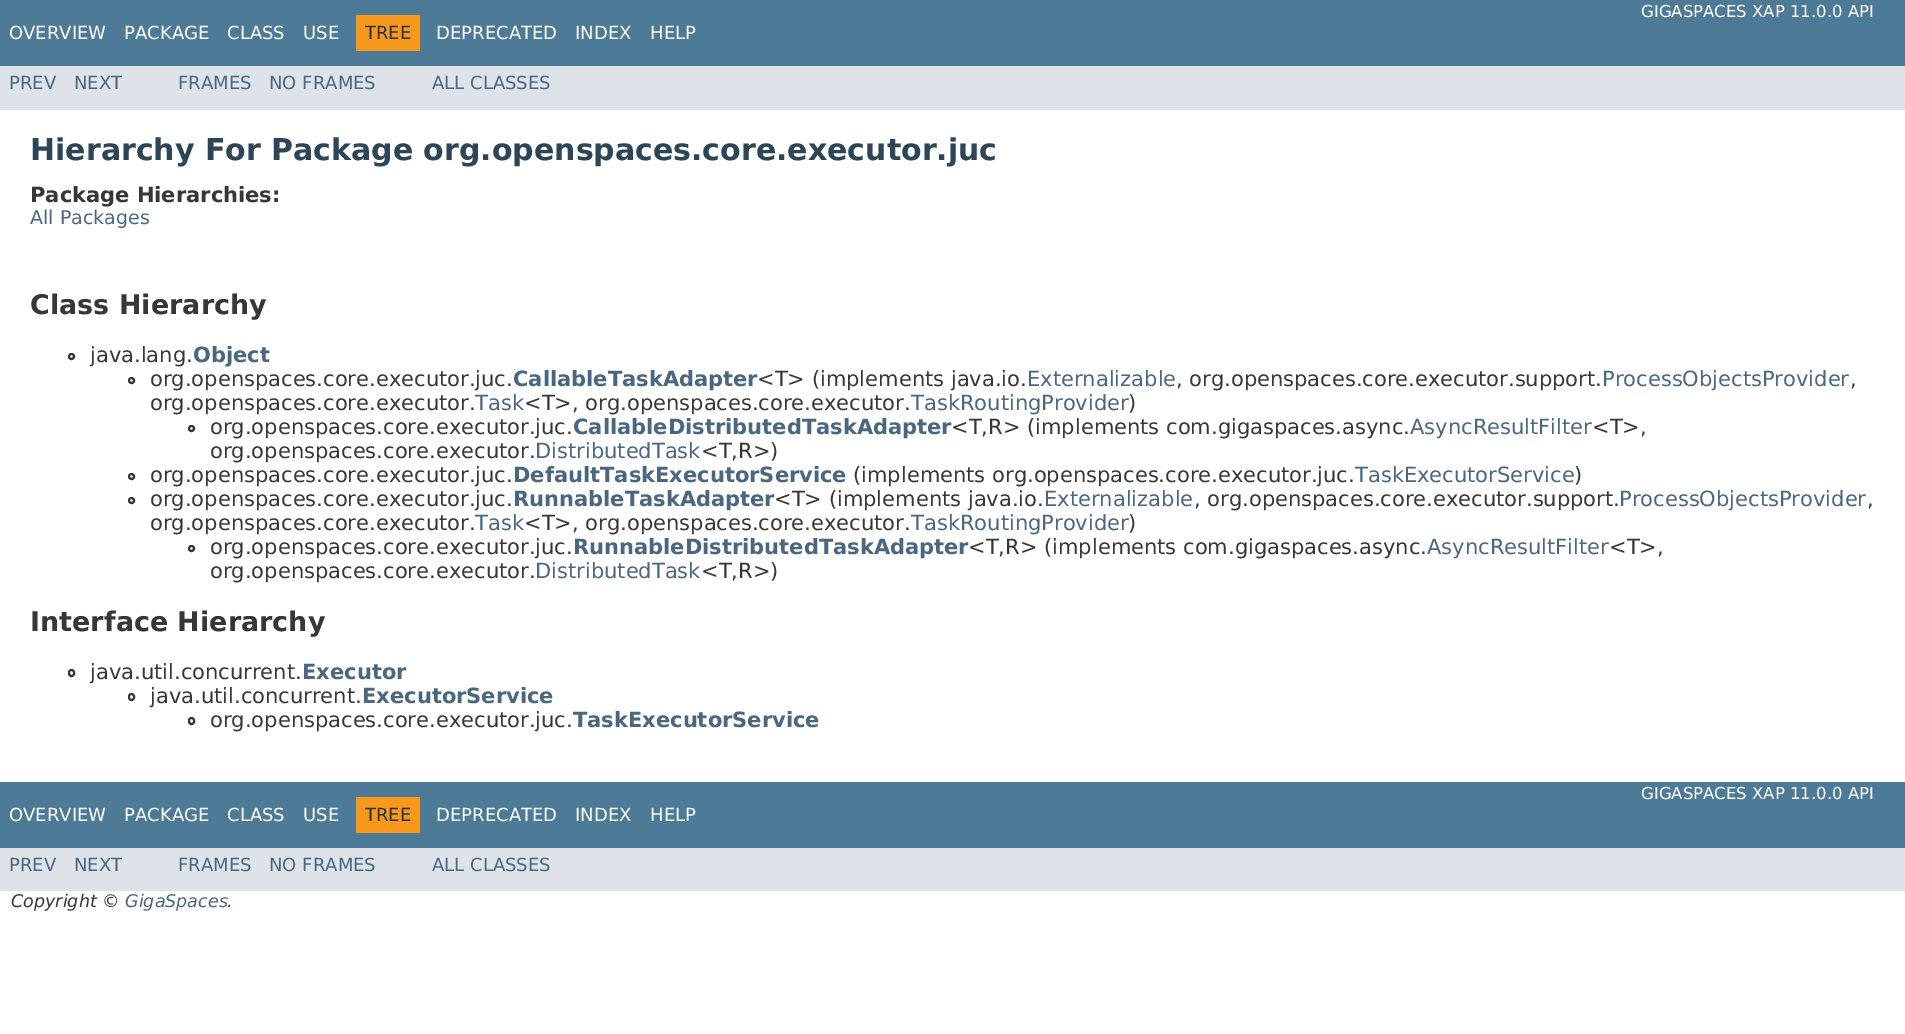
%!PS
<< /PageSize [1905 1034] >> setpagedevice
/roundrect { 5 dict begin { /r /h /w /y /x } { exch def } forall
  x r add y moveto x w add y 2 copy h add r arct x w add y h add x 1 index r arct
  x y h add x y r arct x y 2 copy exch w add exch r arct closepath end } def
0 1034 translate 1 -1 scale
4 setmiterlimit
1 setgray
0 0 1905 1034 rectfill
0.302 0.478 0.592 setrgbcolor
0 0 1905 66 rectfill
/DejaVuSans-Regular [16.5 0 0 -16.5 0 0] selectfont
1 setgray
1641 17 moveto (GIGASPACES XAP 11.0.0 API) show
/DejaVuSans-Regular [18 0 0 -18 0 0] selectfont
9 39 moveto (OVERVIEW) show
124 39 moveto (PACKAGE) show
227 39 moveto (CLASS) show
303 39 moveto (USE) show
0.973 0.596 0.114 setrgbcolor
356 15 64 36 rectfill
0.145 0.204 0.255 setrgbcolor
365 39 moveto (TREE) show
1 setgray
436 39 moveto (DEPRECATED) show
575 39 moveto (INDEX) show
650 39 moveto (HELP) show
0.871 0.89 0.914 setrgbcolor
0 66 1905 44 rectfill
0.29 0.404 0.51 setrgbcolor
9 89 moveto (PREV) show
74 89 moveto (NEXT) show
178 89 moveto (FRAMES) show
269 89 moveto (NO FRAMES) show
432 89 moveto (ALL CLASSES) show
/DejaVuSans-Bold [30 0 0 -30 0 0] selectfont
0.173 0.271 0.341 setrgbcolor
30 160 moveto (Hierarchy For Package org.openspaces.core.executor.juc) show
/DejaVuSans-Bold [21 0 0 -21 0 0] selectfont
0.208 0.22 0.2 setrgbcolor
30 202 moveto (Package Hierarchies:) show
/DejaVuSans-Regular [19 0 0 -19 0 0] selectfont
0.29 0.404 0.51 setrgbcolor
30 224 moveto (All Packages) show
/DejaVuSans-Bold [27 0 0 -27 0 0] selectfont
0.208 0.22 0.2 setrgbcolor
30 314 moveto (Class Hierarchy) show
2 setlinewidth
newpath 71.5 356.5 2.5 0 360 arc closepath stroke
/DejaVuSans-Regular [21 0 0 -21 0 0] selectfont
90 362 moveto (java.lang.) show
/DejaVuSans-Bold [21 0 0 -21 0 0] selectfont
0.29 0.404 0.51 setrgbcolor
193 362 moveto (Object) show
0.208 0.22 0.2 setrgbcolor
newpath 131.5 380.5 2.5 0 360 arc closepath stroke
/DejaVuSans-Regular [21 0 0 -21 0 0] selectfont
150 386 moveto (org.openspaces.core.executor.juc.) show
/DejaVuSans-Bold [21 0 0 -21 0 0] selectfont
0.29 0.404 0.51 setrgbcolor
513 386 moveto (CallableTaskAdapter) show
/DejaVuSans-Regular [21 0 0 -21 0 0] selectfont
0.208 0.22 0.2 setrgbcolor
757 386 moveto (<T> \(implements java.io.) show
0.29 0.404 0.51 setrgbcolor
1027 386 moveto (Externalizable) show
0.208 0.22 0.2 setrgbcolor
1176 386 moveto (, org.openspaces.core.executor.support.) show
0.29 0.404 0.51 setrgbcolor
1602 386 moveto (ProcessObjectsProvider) show
0.208 0.22 0.2 setrgbcolor
1850 386 moveto (,) show
150 410 moveto (org.openspaces.core.executor.) show
0.29 0.404 0.51 setrgbcolor
475 410 moveto (Task) show
0.208 0.22 0.2 setrgbcolor
524 410 moveto (<T>, org.openspaces.core.executor.) show
0.29 0.404 0.51 setrgbcolor
911 410 moveto (TaskRoutingProvider) show
0.208 0.22 0.2 setrgbcolor
1128 410 moveto (\)) show
newpath 191.5 428.5 2.5 0 360 arc closepath stroke
210 434 moveto (org.openspaces.core.executor.juc.) show
/DejaVuSans-Bold [21 0 0 -21 0 0] selectfont
0.29 0.404 0.51 setrgbcolor
573 434 moveto (CallableDistributedTaskAdapter) show
/DejaVuSans-Regular [21 0 0 -21 0 0] selectfont
0.208 0.22 0.2 setrgbcolor
951 434 moveto (<T,R> \(implements com.gigaspaces.async.) show
0.29 0.404 0.51 setrgbcolor
1410 434 moveto (AsyncResultFilter) show
0.208 0.22 0.2 setrgbcolor
1592 434 moveto (<T>,) show
210 458 moveto (org.openspaces.core.executor.) show
0.29 0.404 0.51 setrgbcolor
535 458 moveto (DistributedTask) show
0.208 0.22 0.2 setrgbcolor
701 458 moveto (<T,R>\)) show
newpath 131.5 476.5 2.5 0 360 arc closepath stroke
150 482 moveto (org.openspaces.core.executor.juc.) show
/DejaVuSans-Bold [21 0 0 -21 0 0] selectfont
0.29 0.404 0.51 setrgbcolor
513 482 moveto (DefaultTaskExecutorService) show
/DejaVuSans-Regular [21 0 0 -21 0 0] selectfont
0.208 0.22 0.2 setrgbcolor
853 482 moveto (\(implements org.openspaces.core.executor.juc.) show
0.29 0.404 0.51 setrgbcolor
1355 482 moveto (TaskExecutorService) show
0.208 0.22 0.2 setrgbcolor
1574 482 moveto (\)) show
newpath 131.5 500.5 2.5 0 360 arc closepath stroke
150 506 moveto (org.openspaces.core.executor.juc.) show
/DejaVuSans-Bold [21 0 0 -21 0 0] selectfont
0.29 0.404 0.51 setrgbcolor
513 506 moveto (RunnableTaskAdapter) show
/DejaVuSans-Regular [21 0 0 -21 0 0] selectfont
0.208 0.22 0.2 setrgbcolor
774 506 moveto (<T> \(implements java.io.) show
0.29 0.404 0.51 setrgbcolor
1044 506 moveto (Externalizable) show
0.208 0.22 0.2 setrgbcolor
1194 506 moveto (, org.openspaces.core.executor.support.) show
0.29 0.404 0.51 setrgbcolor
1619 506 moveto (ProcessObjectsProvider) show
0.208 0.22 0.2 setrgbcolor
1867 506 moveto (,) show
150 530 moveto (org.openspaces.core.executor.) show
0.29 0.404 0.51 setrgbcolor
475 530 moveto (Task) show
0.208 0.22 0.2 setrgbcolor
524 530 moveto (<T>, org.openspaces.core.executor.) show
0.29 0.404 0.51 setrgbcolor
911 530 moveto (TaskRoutingProvider) show
0.208 0.22 0.2 setrgbcolor
1128 530 moveto (\)) show
newpath 191.5 548.5 2.5 0 360 arc closepath stroke
210 554 moveto (org.openspaces.core.executor.juc.) show
/DejaVuSans-Bold [21 0 0 -21 0 0] selectfont
0.29 0.404 0.51 setrgbcolor
573 554 moveto (RunnableDistributedTaskAdapter) show
/DejaVuSans-Regular [21 0 0 -21 0 0] selectfont
0.208 0.22 0.2 setrgbcolor
968 554 moveto (<T,R> \(implements com.gigaspaces.async.) show
0.29 0.404 0.51 setrgbcolor
1427 554 moveto (AsyncResultFilter) show
0.208 0.22 0.2 setrgbcolor
1609 554 moveto (<T>,) show
210 578 moveto (org.openspaces.core.executor.) show
0.29 0.404 0.51 setrgbcolor
535 578 moveto (DistributedTask) show
0.208 0.22 0.2 setrgbcolor
701 578 moveto (<T,R>\)) show
/DejaVuSans-Bold [27 0 0 -27 0 0] selectfont
30 631 moveto (Interface Hierarchy) show
69 670 5 6 2.5 roundrect stroke
/DejaVuSans-Regular [21 0 0 -21 0 0] selectfont
90 679 moveto (java.util.concurrent.) show
/DejaVuSans-Bold [21 0 0 -21 0 0] selectfont
0.29 0.404 0.51 setrgbcolor
302 679 moveto (Executor) show
0.208 0.22 0.2 setrgbcolor
129 694 5 6 2.5 roundrect stroke
/DejaVuSans-Regular [21 0 0 -21 0 0] selectfont
150 703 moveto (java.util.concurrent.) show
/DejaVuSans-Bold [21 0 0 -21 0 0] selectfont
0.29 0.404 0.51 setrgbcolor
362 703 moveto (ExecutorService) show
0.208 0.22 0.2 setrgbcolor
189 718 5 6 2.5 roundrect stroke
/DejaVuSans-Regular [21 0 0 -21 0 0] selectfont
210 727 moveto (org.openspaces.core.executor.juc.) show
/DejaVuSans-Bold [21 0 0 -21 0 0] selectfont
0.29 0.404 0.51 setrgbcolor
573 727 moveto (TaskExecutorService) show
0.302 0.478 0.592 setrgbcolor
0 782 1905 66 rectfill
/DejaVuSans-Regular [16.5 0 0 -16.5 0 0] selectfont
1 setgray
1641 799 moveto (GIGASPACES XAP 11.0.0 API) show
/DejaVuSans-Regular [18 0 0 -18 0 0] selectfont
9 821 moveto (OVERVIEW) show
124 821 moveto (PACKAGE) show
227 821 moveto (CLASS) show
303 821 moveto (USE) show
0.973 0.596 0.114 setrgbcolor
356 797 64 36 rectfill
0.145 0.204 0.255 setrgbcolor
365 821 moveto (TREE) show
1 setgray
436 821 moveto (DEPRECATED) show
575 821 moveto (INDEX) show
650 821 moveto (HELP) show
0.871 0.89 0.914 setrgbcolor
0 848 1905 43 rectfill
0.29 0.404 0.51 setrgbcolor
9 871 moveto (PREV) show
74 871 moveto (NEXT) show
178 871 moveto (FRAMES) show
269 871 moveto (NO FRAMES) show
432 871 moveto (ALL CLASSES) show
/DejaVuSans-Italic [17.5 0 0 -17.5 0 0] selectfont
0.208 0.22 0.2 setrgbcolor
11 907 moveto (Copyright ©) show
0.29 0.404 0.51 setrgbcolor
125 907 moveto (GigaSpaces) show
0.208 0.22 0.2 setrgbcolor
227 907 moveto (.) show
showpage
